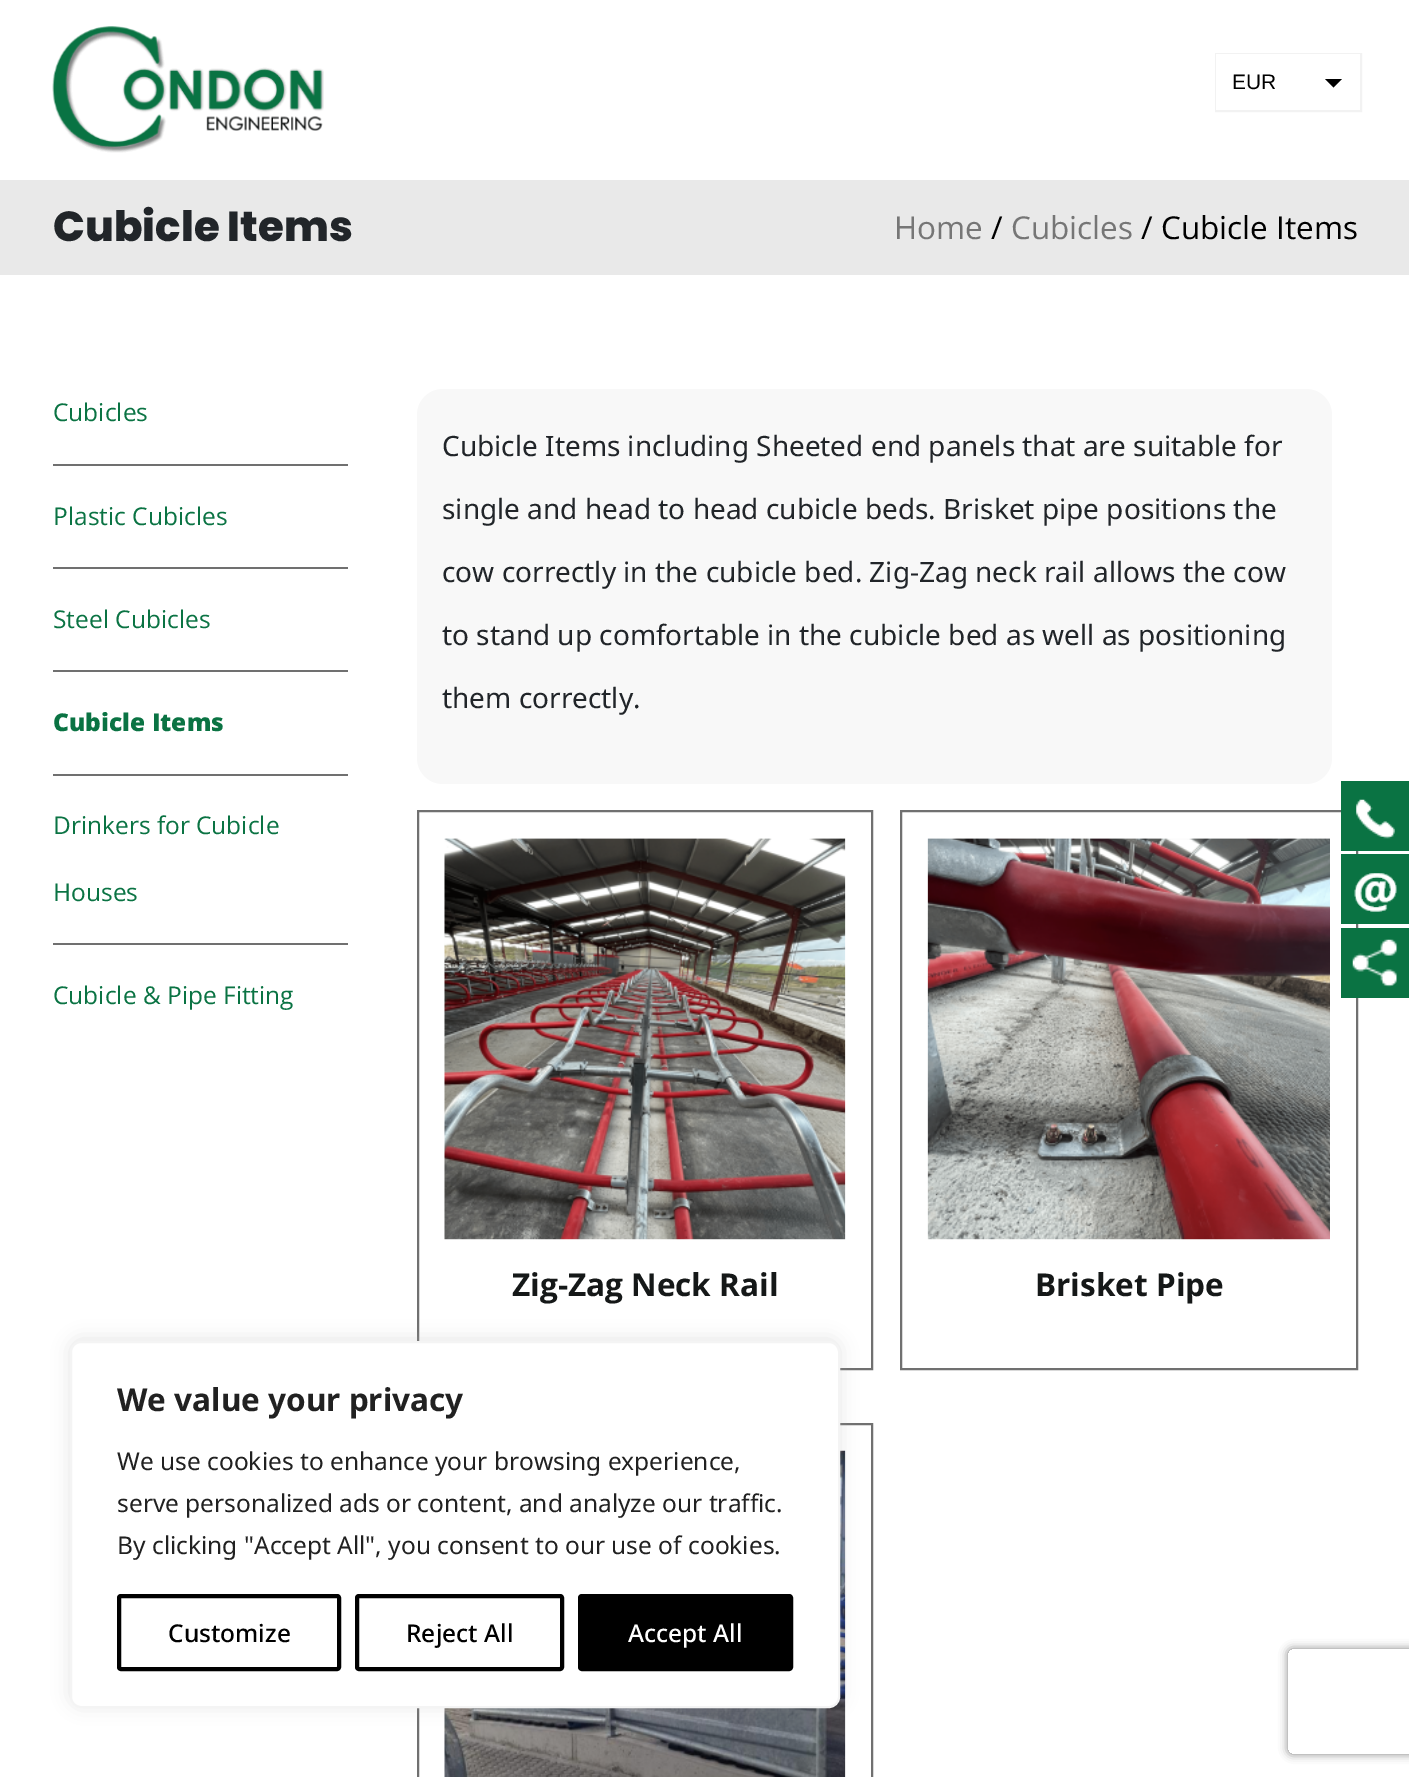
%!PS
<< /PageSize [1409 1777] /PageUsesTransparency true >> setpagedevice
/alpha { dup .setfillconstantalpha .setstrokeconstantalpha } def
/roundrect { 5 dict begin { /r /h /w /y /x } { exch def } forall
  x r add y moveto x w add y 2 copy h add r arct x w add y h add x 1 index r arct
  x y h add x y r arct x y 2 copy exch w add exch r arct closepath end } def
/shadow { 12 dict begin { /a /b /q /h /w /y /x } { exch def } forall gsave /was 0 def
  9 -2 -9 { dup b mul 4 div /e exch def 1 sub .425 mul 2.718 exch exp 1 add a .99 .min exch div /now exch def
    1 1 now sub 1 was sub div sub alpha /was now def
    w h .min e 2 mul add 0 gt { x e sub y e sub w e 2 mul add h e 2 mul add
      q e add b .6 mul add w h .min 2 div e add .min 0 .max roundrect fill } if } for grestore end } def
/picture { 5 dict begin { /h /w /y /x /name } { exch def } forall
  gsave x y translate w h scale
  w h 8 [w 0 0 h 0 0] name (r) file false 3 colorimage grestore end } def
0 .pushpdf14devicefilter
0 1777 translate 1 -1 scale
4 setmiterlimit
1 setgray
0 0 1409 1777 rectfill
(img1.rgb) 52 26 272 127 picture
0.949 setgray
2 setlinewidth
1216 54 145 57 rectstroke
1 setgray
1216 54 144 56 rectfill
/LiberationSans-Regular [21 0 0 -21 0 0] selectfont
0 setgray
1232 89 moveto (EUR) show
newpath 1325 79 moveto 1342 79 lineto 1333.5 87.5 lineto closepath fill
0.914 setgray
0 180 1409 95 rectfill
/Poppins-ExtraBold [42 0 0 -42 0 0] selectfont
0.129 0.145 0.161 setrgbcolor
53 241 moveto (Cubicle Items) show
/OpenSans-Regular [31.5 0 0 -31.5 0 0] selectfont
0.463 setgray
894 239 moveto (Home) show
0 setgray
991 239 moveto (/) show
0.463 setgray
1011 239 moveto (Cubicles) show
0 setgray
1141 239 moveto (/ Cubicle Items) show
0.439 setgray
53 464 295 2 rectfill
/OpenSans-Regular [24.5 0 0 -24.5 0 0] selectfont
0.039 0.451 0.263 setrgbcolor
53 421 moveto (Cubicles) show
0.439 setgray
53 567 295 2 rectfill
0.039 0.451 0.263 setrgbcolor
53 525 moveto (Plastic Cubicles) show
0.439 setgray
53 670 295 2 rectfill
0.039 0.451 0.263 setrgbcolor
53 628 moveto (Steel Cubicles) show
0.439 setgray
53 774 295 2 rectfill
/OpenSans-ExtraBold [24.5 0 0 -24.5 0 0] selectfont
0.039 0.451 0.263 setrgbcolor
53 731 moveto (Cubicle Items) show
0.439 setgray
53 943 295 2 rectfill
/OpenSans-Regular [24.5 0 0 -24.5 0 0] selectfont
0.039 0.451 0.263 setrgbcolor
53 834 moveto (Drinkers for Cubicle) show
53 901 moveto (Houses) show
53 1004 moveto (Cubicle & Pipe Fitting) show
0.973 setgray
417 389 915 395 26 roundrect fill
/NotoSans-Regular [28 0 0 -28 0 0] selectfont
0.129 0.145 0.161 setrgbcolor
442 456 moveto (Cubicle Items including Sheeted end panels that are suitable for) show
442 519 moveto (single and head to head cubicle beds. Brisket pipe positions the) show
442 582 moveto (cow correctly in the cubicle bed. Zig-Zag neck rail allows the cow) show
442 645 moveto (to stand up comfortable in the cubicle bed as well as positioning) show
442 708 moveto (them correctly.) show
0.439 setgray
418 811 454 558 rectstroke
(img2.rgb) 444 838 402 402 picture
/OpenSans-Bold [31.5 0 0 -31.5 0 0] selectfont
0.082 0.094 0.094 setrgbcolor
512 1296 moveto (Zig-Zag Neck Rail) show
0.439 setgray
901 811 456 558 rectstroke
(img3.rgb) 927 838 403 402 picture
0.082 0.094 0.094 setrgbcolor
1035 1296 moveto (Brisket Pipe) show
0.439 setgray
418 1424 454 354 rectstroke
(img4.rgb) 444 1450 402 327 picture
0.039 0.451 0.263 setrgbcolor
1341 781 68 70 rectfill
(img5.rgb) 1356 799 39 40 picture
1341 854 68 70 rectfill
(img6.rgb) 1354 873 43 39 picture
1341 928 68 70 rectfill
(img7.rgb) 1352 939 46 48 picture
0.675 0.671 0.671 setrgbcolor
70 1339 770 367 11 9 0.3 shadow
1 setgray
71 1342 768 365 10 roundrect gsave fill grestore
0.957 setgray
stroke
/NotoSans-Bold [31.5 0 0 -31.5 0 0] selectfont
0.129 setgray
117 1411 moveto (We value your privacy) show
/NotoSans-Regular [24.5 0 0 -24.5 0 0] selectfont
117 1470 moveto (We use cookies to enhance your browsing experience,) show
117 1512 moveto (serve personalized ads or content, and analyze our traffic.) show
117 1554 moveto (By clicking "Accept All", you consent to our use of cookies.) show
0 setgray
4 setlinewidth
119 1596 220 73 2 roundrect stroke
/NotoSans-Medium [24.5 0 0 -24.5 0 0] selectfont
168 1642 moveto (Customize) show
357 1596 205 73 2 roundrect stroke
406 1642 moveto (Reject All) show
580 1596 211 73 2 roundrect gsave fill grestore
stroke
1 setgray
628 1642 moveto (Accept All) show
gsave
newpath 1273 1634 moveto 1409 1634 lineto 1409 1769 lineto 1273 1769 lineto closepath 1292 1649 moveto 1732 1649 lineto 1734 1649 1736 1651 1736 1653 curveto 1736 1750 lineto 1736 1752 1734 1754 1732 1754 curveto 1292 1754 lineto 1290 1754 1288 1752 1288 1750 curveto 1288 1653 lineto 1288 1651 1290 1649 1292 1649 curveto closepath eoclip newpath
0.502 setgray
1288 1649 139 105 4 4.5 1 shadow
grestore
.poppdf14devicefilter showpage
